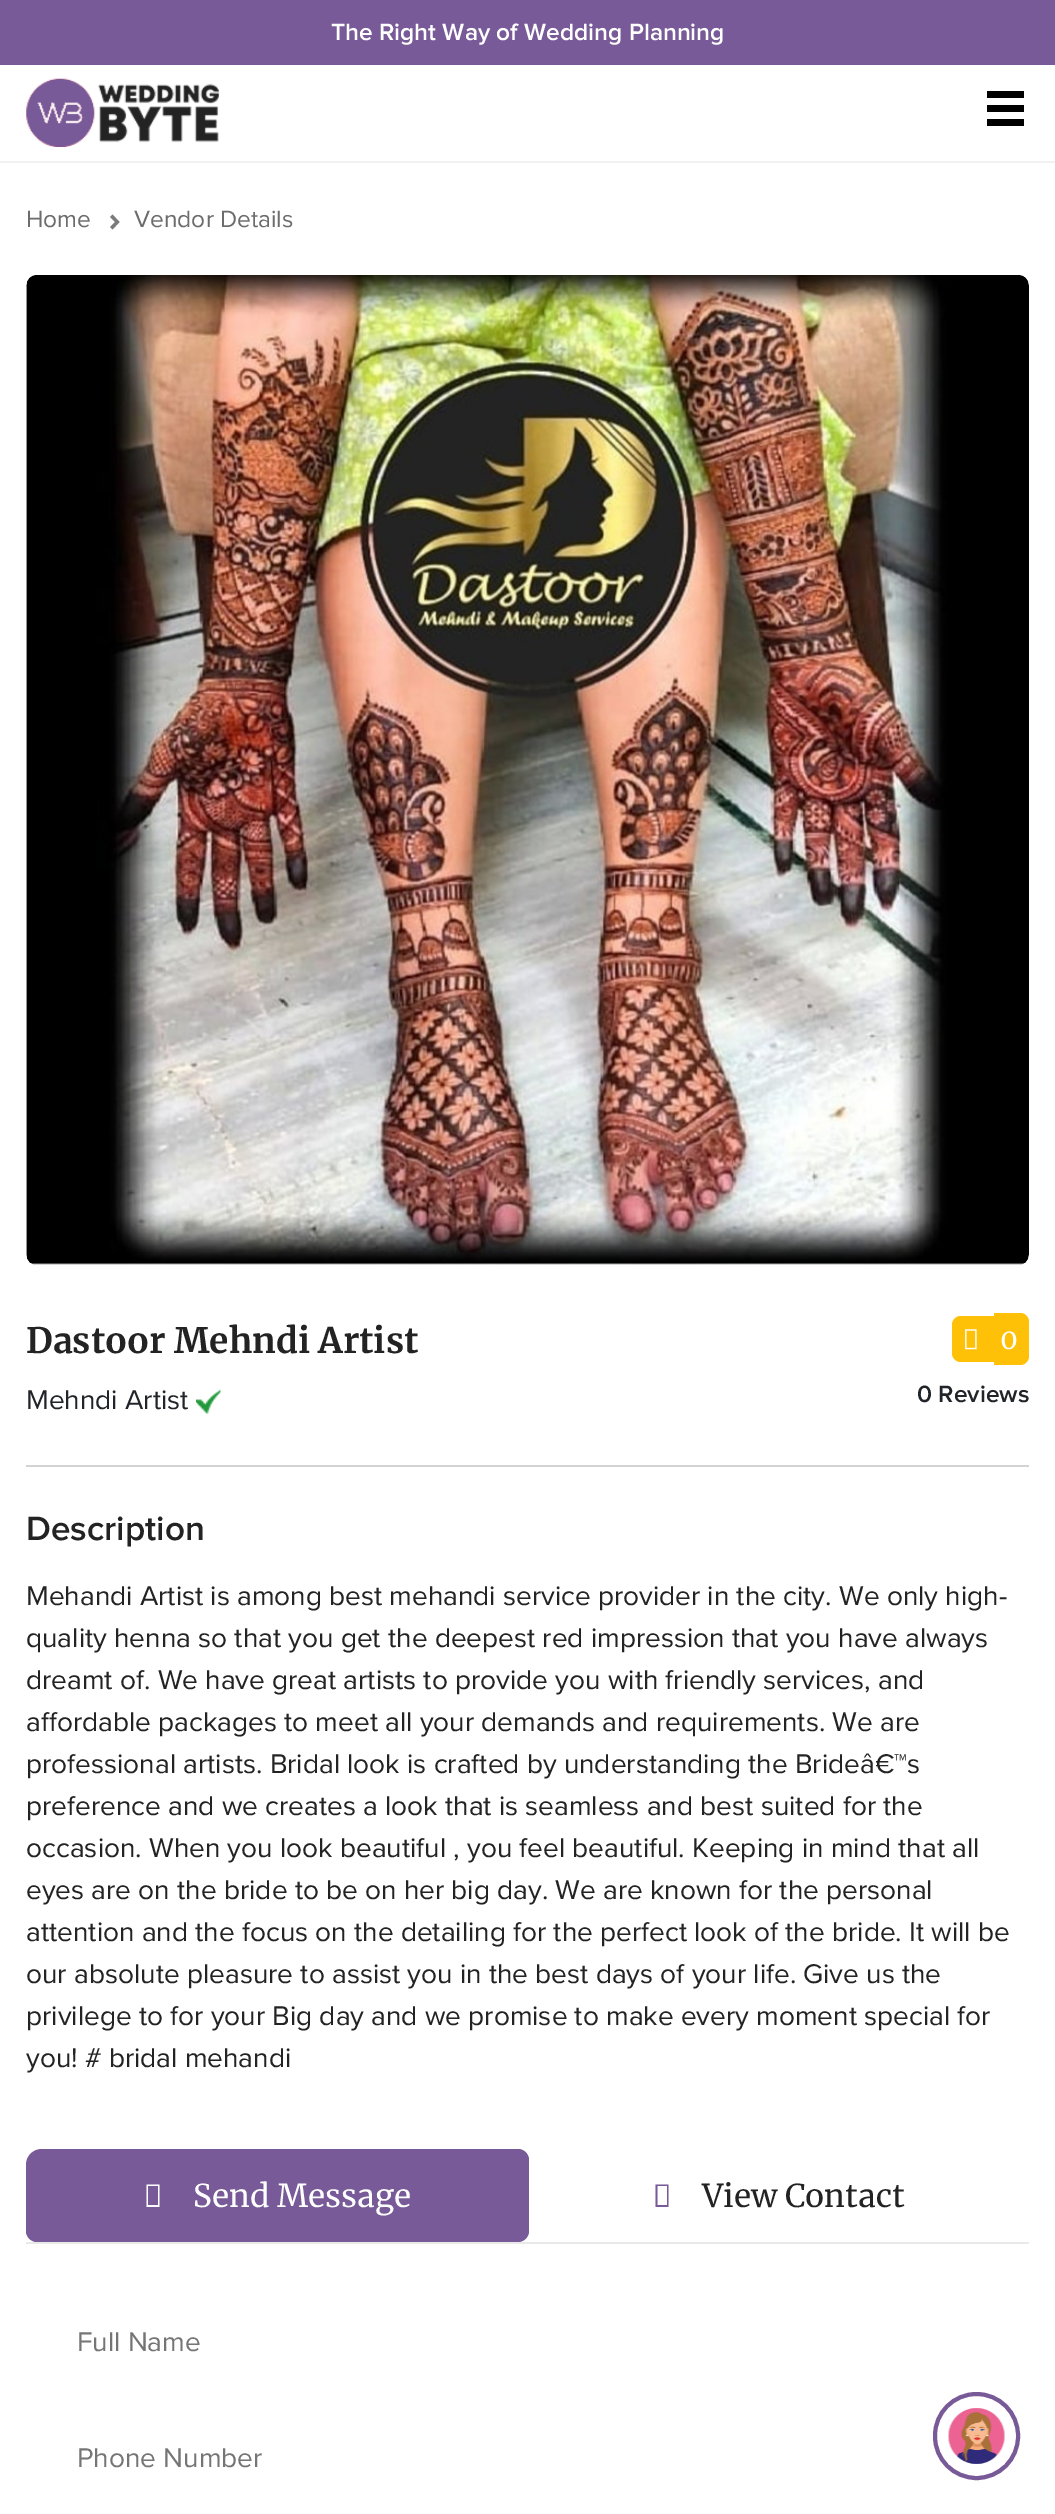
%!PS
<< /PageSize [1055 2514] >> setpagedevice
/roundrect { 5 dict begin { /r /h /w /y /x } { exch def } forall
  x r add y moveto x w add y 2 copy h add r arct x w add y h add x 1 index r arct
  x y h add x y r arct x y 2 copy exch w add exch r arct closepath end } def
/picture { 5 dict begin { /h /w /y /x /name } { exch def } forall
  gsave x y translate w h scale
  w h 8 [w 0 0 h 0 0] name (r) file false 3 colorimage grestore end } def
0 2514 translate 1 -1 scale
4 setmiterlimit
1 setgray
0 0 1055 2514 rectfill
0.467 0.353 0.592 setrgbcolor
0 0 1055 65 rectfill
/ProximaNova-SemiBold [24.5 0 0 -24.5 0 0] selectfont
1 setgray
331 40 moveto (The Right Way of Wedding Planning) show
0.949 0.945 0.945 setrgbcolor
0 161 1055 2 rectfill
(img1.rgb) 26 78 193 69 picture
0 setgray
987 91 37 7 rectfill
987 105 37 7 rectfill
987 119 37 7 rectfill
/ProximaNova-Regular [24.5 0 0 -24.5 0 0] selectfont
0.424 setgray
26 227 moveto (Home) show
0.482 setgray
newpath 112.5 214.5 moveto 119.5 222 lineto 115 222 lineto 110 217 lineto closepath 119.5 222 moveto 112.5 229.5 lineto 110 227 lineto 115 222 lineto closepath fill
0.424 setgray
134 227 moveto (Vendor Details) show
(img2.rgb) 26 275 1003 990 picture
/Merriweather-Bold [35 0 0 -35 0 0] selectfont
0.137 setgray
26 1353 moveto (Dastoor Mehndi Artist) show
/ProximaNova-Regular [28 0 0 -28 0 0] selectfont
0.129 0.145 0.161 setrgbcolor
26 1409 moveto (Mehndi Artist) show
(img3.rgb) 196 1389 25 25 picture
1 0.757 0.027 setrgbcolor
newpath 961 1316 moveto 994 1316 lineto 994 1362 lineto 961 1362 lineto 956 1362 952 1358 952 1353 curveto 952 1325 lineto 952 1320 956 1316 961 1316 curveto closepath fill
newpath 994 1313 moveto 1020 1313 lineto 1025 1313 1029 1317 1029 1322 curveto 1029 1356 lineto 1029 1361 1025 1365 1020 1365 curveto 994 1365 lineto closepath fill
(img4.rgb) 965 1329 12 21 picture
/Merriweather-Regular [28 0 0 -28 0 0] selectfont
1 setgray
1000 1349 moveto (0) show
/ProximaNova-SemiBold [24.5 0 0 -24.5 0 0] selectfont
0.129 0.145 0.161 setrgbcolor
917 1402 moveto (0 Reviews) show
0.827 setgray
26 1465 1003 2 rectfill
/ProximaNova-SemiBold [35 0 0 -35 0 0] selectfont
0.137 setgray
26 1540 moveto (Description) show
/ProximaNova-Regular [28 0 0 -28 0 0] selectfont
26 1605 moveto (Mehandi Artist is among best mehandi service provider in the city. We only high-) show
26 1647 moveto (quality henna so that you get the deepest red impression that you have always) show
26 1689 moveto (dreamt of. We have great artists to provide you with friendly services, and) show
26 1731 moveto (affordable packages to meet all your demands and requirements. We are) show
26 1773 moveto (professional artists. Bridal look is crafted by understanding the Brideâ€™s) show
26 1815 moveto (preference and we creates a look that is seamless and best suited for the) show
26 1857 moveto (occasion. When you look beautiful , you feel beautiful. Keeping in mind that all) show
26 1899 moveto (eyes are on the bride to be on her big day. We are known for the personal) show
26 1941 moveto (attention and the focus on the detailing for the perfect look of the bride. It will be) show
26 1983 moveto (our absolute pleasure to assist you in the best days of your life. Give us the) show
26 2025 moveto (privilege to for your Big day and we promise to make every moment special for) show
26 2067 moveto (you! # bridal mehandi) show
0.914 setgray
26 2242 1003 2 rectfill
0.467 0.353 0.592 setrgbcolor
newpath 42 2149 moveto 518 2149 lineto 524 2149 529 2154 529 2160 curveto 529 2231 lineto 529 2237 524 2242 518 2242 curveto 37 2242 lineto 31 2242 26 2237 26 2231 curveto 26 2165 lineto 26 2156 33 2149 42 2149 curveto closepath fill
1 setgray
newpath 146.5 2207 moveto 146.5 2184.5 lineto 159.5 2184.5 lineto 159.5 2207 lineto closepath 148 2205 moveto 158 2205 lineto 158 2186 lineto 148 2186 lineto closepath fill
/Merriweather-Regular [31.5 0 0 -31.5 0 0] selectfont
193 2207 moveto (Send Message) show
0.467 0.353 0.592 setrgbcolor
newpath 655.5 2207 moveto 655.5 2184.5 lineto 668.5 2184.5 lineto 668.5 2207 lineto closepath 657.5 2205 moveto 667 2205 lineto 667 2186 lineto 657.5 2186 lineto closepath fill
0.137 setgray
702 2207 moveto (View Contact) show
/ProximaNova-Regular [28 0 0 -28 0 0] selectfont
0.459 setgray
77 2351 moveto (Full Name) show
77 2467 moveto (Phone Number) show
0.467 0.353 0.592 setrgbcolor
4 setlinewidth
935 2394 83 84 41.5 roundrect stroke
(img5.rgb) 948 2408 57 57 picture
showpage
